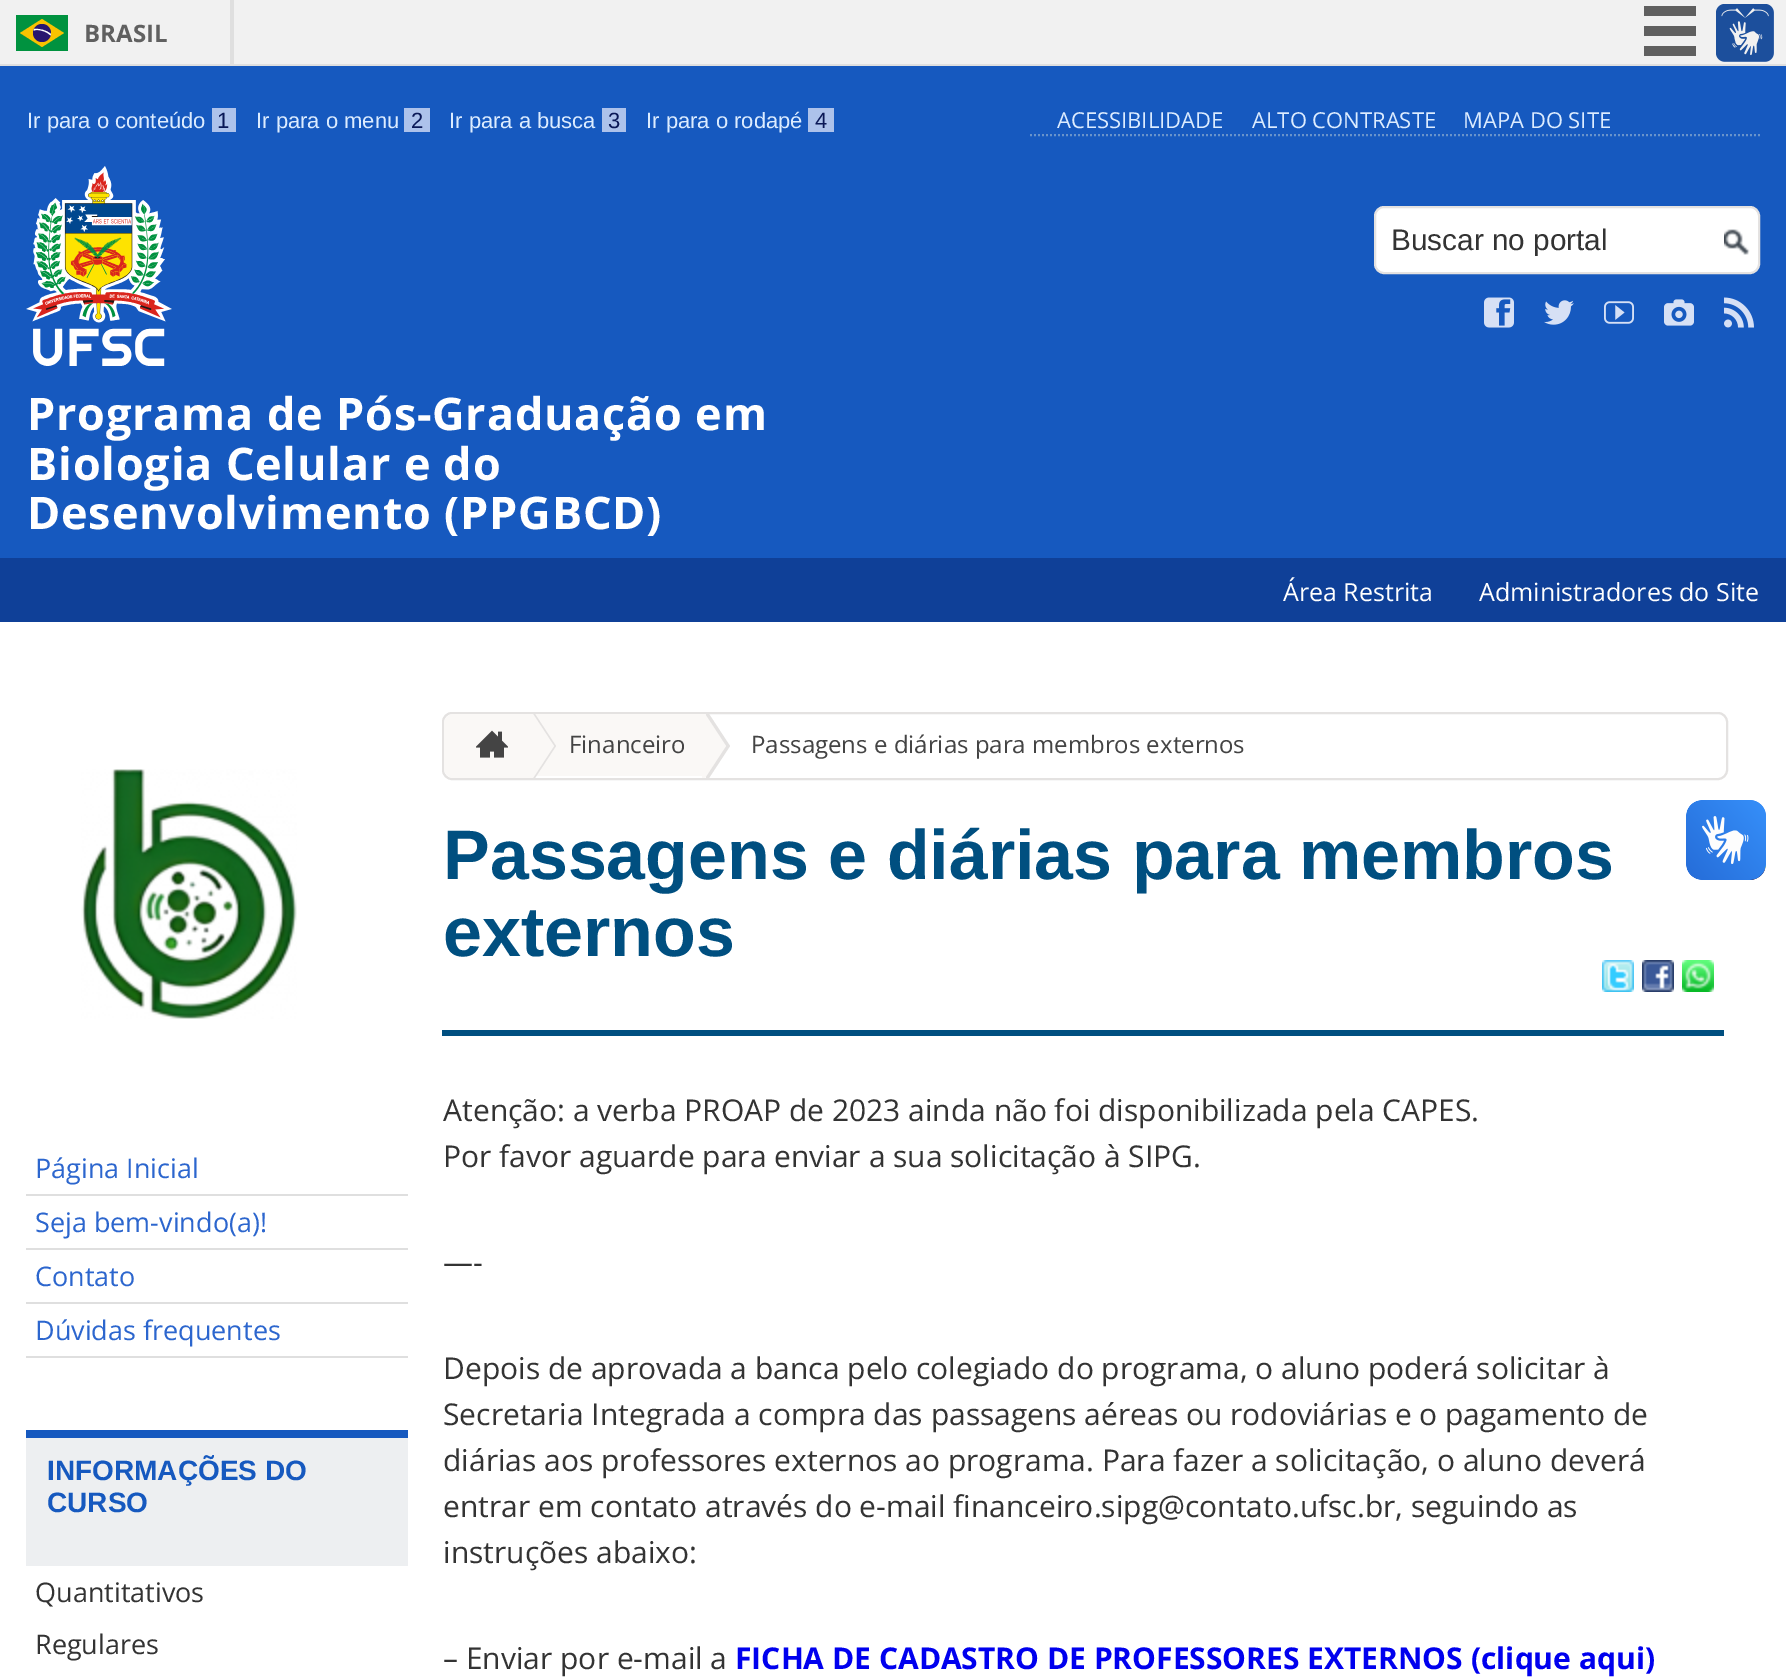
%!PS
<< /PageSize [1786 1680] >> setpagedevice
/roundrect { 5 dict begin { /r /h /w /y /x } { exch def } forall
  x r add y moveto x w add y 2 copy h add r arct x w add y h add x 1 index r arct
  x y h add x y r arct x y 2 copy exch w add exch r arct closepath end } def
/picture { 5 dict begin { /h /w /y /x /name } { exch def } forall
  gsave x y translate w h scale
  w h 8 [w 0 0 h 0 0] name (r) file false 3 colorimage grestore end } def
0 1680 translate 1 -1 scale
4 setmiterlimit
1 setgray
0 0 1786 1680 rectfill
0.945 setgray
0 0 1786 64 rectfill
0.875 setgray
0 64 1786 2 rectfill
230 0 4 64 rectfill
0 0.573 0.247 setrgbcolor
16 15 52 36 rectfill
0.973 0.765 0 setrgbcolor
newpath 42 19 moveto 20 33 lineto 42 47 lineto 64 33 lineto closepath fill
0.157 0.086 0.435 setrgbcolor
newpath 42 33 9 0 360 arc closepath fill
1 setgray
newpath 36.5 30 moveto 42 30 47 32 50.5 35.5 curveto 51 34 lineto 46 30 40 28.5 34 29 curveto 33.5 30.5 lineto closepath fill
/OpenSans-Bold [24 0 0 -24 0 0] selectfont
0.376 setgray
84 42 moveto (BRASIL) show
1644 6 52 10 rectfill
1644 26 52 10 rectfill
1644 46 52 10 rectfill
(img1.rgb) 1716 4 58 58 picture
0.086 0.349 0.749 setrgbcolor
0 66 1786 492 rectfill
/LiberationSans-Regular [22 0 0 -22 0 0] selectfont
0.863 0.925 1 setrgbcolor
27 128 moveto (Ir para o conteúdo) show
0.678 0.761 0.922 setrgbcolor
212 108 24 24 rectfill
0.039 0.094 0.341 setrgbcolor
217 128 moveto (1) show
0.863 0.925 1 setrgbcolor
256 128 moveto (Ir para o menu) show
0.678 0.761 0.922 setrgbcolor
404 108 26 24 rectfill
0.039 0.094 0.341 setrgbcolor
411 128 moveto (2) show
0.863 0.925 1 setrgbcolor
449 128 moveto (Ir para a busca) show
0.678 0.761 0.922 setrgbcolor
602 108 24 24 rectfill
0.039 0.094 0.341 setrgbcolor
608 128 moveto (3) show
0.863 0.925 1 setrgbcolor
646 128 moveto (Ir para o rodapé) show
0.678 0.761 0.922 setrgbcolor
808 108 26 24 rectfill
0.039 0.094 0.341 setrgbcolor
815 128 moveto (4) show
0.408 0.576 0.796 setrgbcolor
2 setlinewidth
[2 2] 0 setdash
newpath 1030 135 moveto 1760 135 lineto stroke
/OpenSans-Regular [22 0 0 -22 0 0] selectfont
0.863 0.925 1 setrgbcolor
1057 128 moveto (ACESSIBILIDADE) show
1252 128 moveto (ALTO CONTRASTE) show
1463 128 moveto (MAPA DO SITE) show
1 setgray
1375 207 384 66 9 roundrect gsave fill grestore
0.894 0.886 0.882 setrgbcolor
[] 0 setdash
stroke
gsave
1392 224 350 32 rectclip
/LiberationSans-Regular [29.75 0 0 -29.75 0 0] selectfont
0.2 setgray
1391 250 moveto (Buscar no portal) show
grestore
(img2.rgb) 1724 229 26 26 picture
(img3.rgb) 1484 297 30 31 picture
(img4.rgb) 1544 300 30 25 picture
(img5.rgb) 1604 301 30 23 picture
(img6.rgb) 1664 299 30 27 picture
(img7.rgb) 1724 297 30 31 picture
(img8.rgb) 26 166 146 200 picture
/OpenSans-Bold [45 0 0 -45 0 0] selectfont
1 setgray
27 430 moveto 0.8 0 (Programa de Pós-Graduação em) ashow
27 480 moveto 0.8 0 (Biologia Celular e do) ashow
27 529 moveto 0.8 0 (Desenvolvimento \(PPGBCD\)) ashow
0.059 0.251 0.596 setrgbcolor
0 558 1786 64 rectfill
/OpenSans-Regular [25 0 0 -25 0 0] selectfont
1 setgray
1283 601 moveto (Área Restrita) show
1479 601 moveto (Administradores do Site) show
(img9.rgb) 81 769 216 250 picture
0.875 setgray
26 1194 382 2 rectfill
/OpenSans-Regular [27 0 0 -27 0 0] selectfont
0.173 0.4 0.808 setrgbcolor
35 1178 moveto (Página Inicial) show
0.875 setgray
26 1248 382 2 rectfill
0.173 0.4 0.808 setrgbcolor
35 1232 moveto (Seja bem-vindo\(a\)!) show
0.875 setgray
26 1302 382 2 rectfill
0.173 0.4 0.808 setrgbcolor
35 1286 moveto (Contato) show
0.875 setgray
26 1356 382 2 rectfill
0.173 0.4 0.808 setrgbcolor
35 1340 moveto (Dúvidas frequentes) show
0.929 0.937 0.945 setrgbcolor
26 1438 382 128 rectfill
0.086 0.349 0.749 setrgbcolor
26 1430 382 8 rectfill
/LiberationSans-Bold [28 0 0 -28 0 0] selectfont
47 1480 moveto (INFORMAÇÕES DO) show
47 1512 moveto (CURSO) show
/OpenSans-Regular [27 0 0 -27 0 0] selectfont
0.2 setgray
35 1602 moveto (Quantitativos) show
35 1654 moveto (Regulares) show
0.894 0.886 0.882 setrgbcolor
443 713 1284 66 9 roundrect stroke
0.98 0.973 0.965 setrgbcolor
newpath 454 714 moveto 522 714 lineto 522 778 lineto 454 778 lineto 448.5 778 444 773.5 444 768 curveto 444 724 lineto 444 718.5 448.5 714 454 714 curveto closepath fill
535 714 167 62 rectfill
0.894 0.886 0.882 setrgbcolor
newpath 535 714 moveto 556 746 lineto 535 778 lineto 524 778 lineto 524 714 lineto closepath fill
0.98 0.973 0.965 setrgbcolor
newpath 533 714 moveto 554 746 lineto 533 778 lineto 522 778 lineto 522 714 lineto closepath fill
(img10.rgb) 476 730 32 28 picture
0.894 0.886 0.882 setrgbcolor
newpath 709 714 moveto 730 746 lineto 709 778 lineto 706 778 lineto 706 714 lineto closepath fill
0.98 0.973 0.965 setrgbcolor
newpath 705 714 moveto 726 746 lineto 705 778 lineto 702 778 lineto 702 714 lineto closepath fill
/OpenSans-Regular [24 0 0 -24 0 0] selectfont
0.267 setgray
569 753 moveto (Financeiro) show
751 753 moveto (Passagens e diárias para membros externos) show
/LiberationSans-Bold [70 0 0 -70 0 0] selectfont
0 0.31 0.502 setrgbcolor
443 879 moveto (Passagens e diárias para membros) show
443 956 moveto (externos) show
442 1030 1282 6 rectfill
(img11.rgb) 1602 960 32 32 picture
(img12.rgb) 1642 960 32 32 picture
(img13.rgb) 1682 960 32 32 picture
/OpenSans-Regular [30 0 0 -30 0 0] selectfont
0.2 setgray
443 1121 moveto (Atenção: a verba PROAP de 2023 ainda não foi disponibilizada pela CAPES.) show
443 1167 moveto (Por favor aguarde para enviar a sua solicitação à SIPG.) show
443 1273 moveto (—-) show
443 1379 moveto (Depois de aprovada a banca pelo colegiado do programa, o aluno poderá solicitar à) show
443 1425 moveto (Secretaria Integrada a compra das passagens aéreas ou rodoviárias e o pagamento de) show
443 1471 moveto (diárias aos professores externos ao programa. Para fazer a solicitação, o aluno deverá) show
443 1517 moveto (entrar em contato através do e-mail financeiro.sipg@contato.ufsc.br, seguindo as) show
443 1563 moveto (instruções abaixo:) show
443 1669 moveto (– Enviar por e-mail a) show
/OpenSans-Bold [30 0 0 -30 0 0] selectfont
0 0 0.933 setrgbcolor
735 1669 moveto (FICHA DE CADASTRO DE PROFESSORES EXTERNOS \(clique aqui\)) show
(img14.rgb) 1686 800 80 80 picture
(img15.rgb) 1686 800 80 80 picture
showpage
